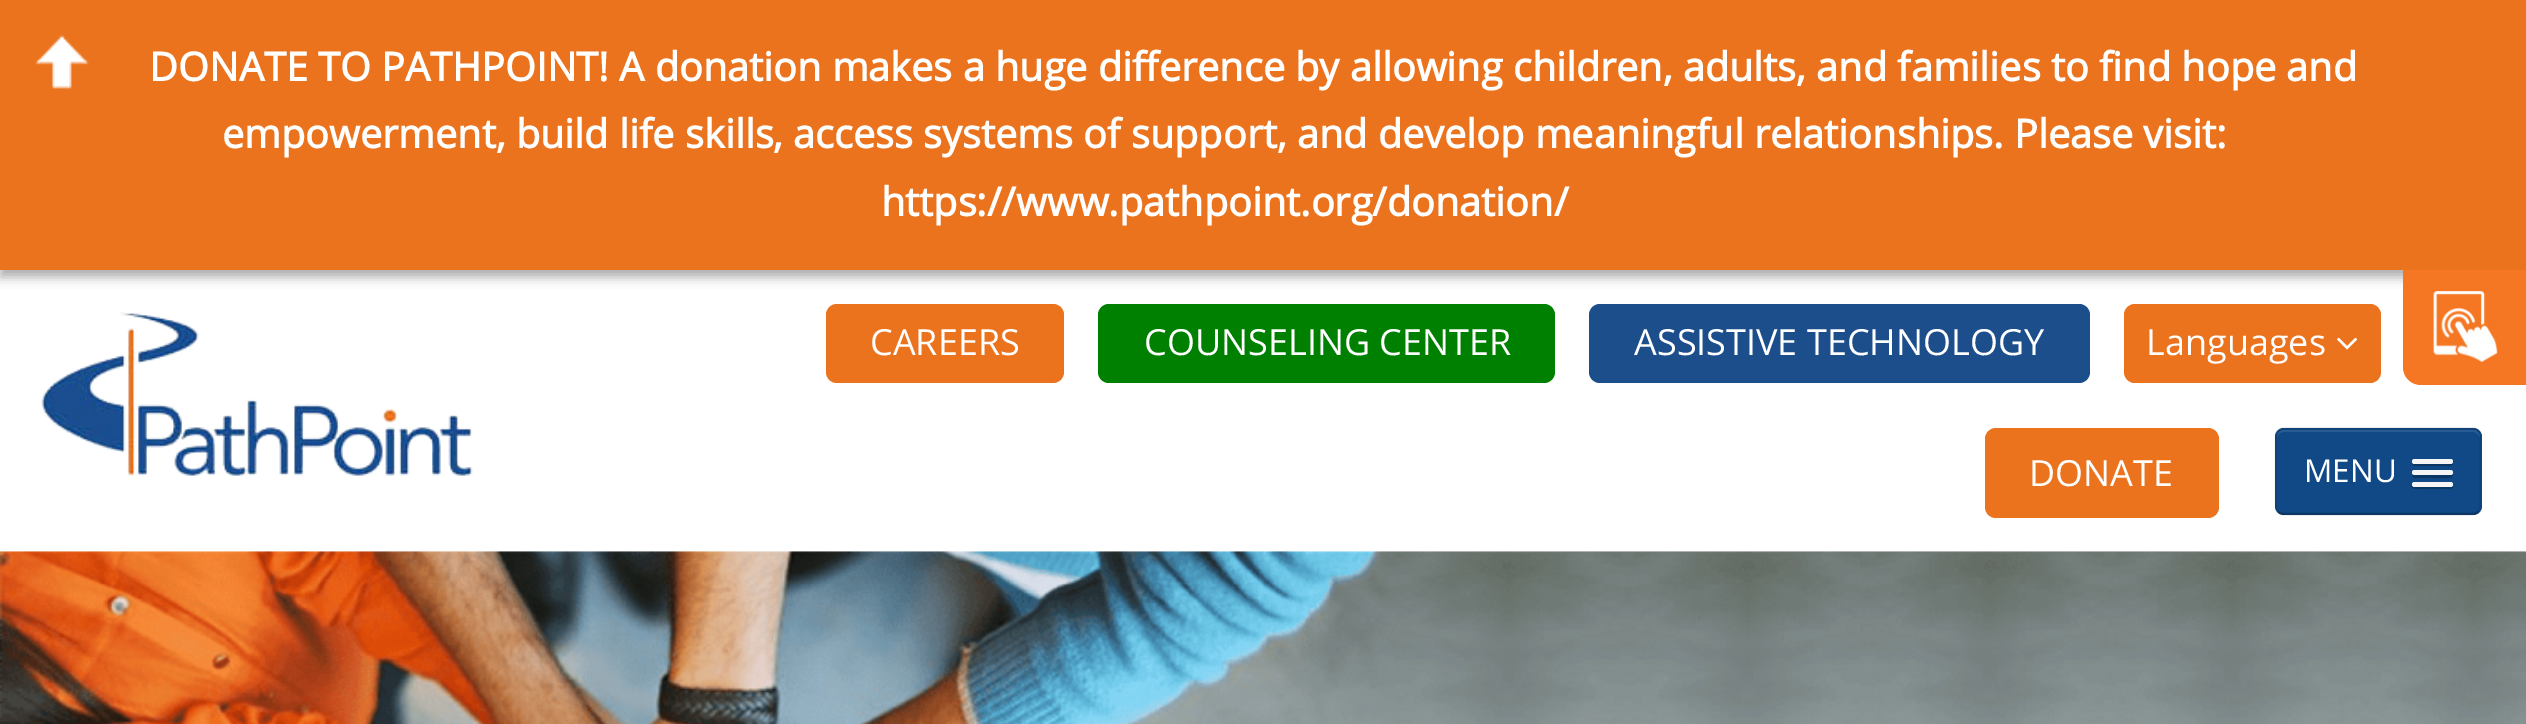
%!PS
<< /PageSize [2526 724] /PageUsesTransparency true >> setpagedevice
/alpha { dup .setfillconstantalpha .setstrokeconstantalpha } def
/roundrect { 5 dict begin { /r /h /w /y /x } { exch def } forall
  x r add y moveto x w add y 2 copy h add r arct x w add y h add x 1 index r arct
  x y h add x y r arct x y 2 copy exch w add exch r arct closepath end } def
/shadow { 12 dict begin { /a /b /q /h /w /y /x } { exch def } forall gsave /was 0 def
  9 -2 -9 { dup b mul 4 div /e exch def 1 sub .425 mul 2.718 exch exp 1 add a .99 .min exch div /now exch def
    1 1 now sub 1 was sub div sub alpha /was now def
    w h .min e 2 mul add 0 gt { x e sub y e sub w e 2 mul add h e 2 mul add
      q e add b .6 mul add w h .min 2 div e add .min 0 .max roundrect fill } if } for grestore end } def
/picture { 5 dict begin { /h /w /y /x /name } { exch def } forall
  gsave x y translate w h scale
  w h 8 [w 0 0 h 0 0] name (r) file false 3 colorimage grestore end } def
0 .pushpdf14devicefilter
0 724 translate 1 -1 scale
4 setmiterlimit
1 setgray
0 0 2526 724 rectfill
0.671 setgray
0 7 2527 270 0 5.5 1 shadow
0.922 0.451 0.114 setrgbcolor
0 0 2526 270 rectfill
(img1.rgb) 35 35 54 54 picture
/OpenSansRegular-Bold [39.6 0 0 -39.6 0 0] selectfont
1 setgray
149 81 moveto (DONATE TO PATHPOINT! A donation makes a huge difference by allowing children, adults, and families to find hope and) show
222 148 moveto (empowerment, build life skills, access systems of support, and develop meaningful relationships. Please visit:) show
881 216 moveto (https://www.pathpoint.org/donation/) show
(img2.rgb) 41 312 432 164 picture
0.922 0.451 0.114 setrgbcolor
826 304 238 79 11 roundrect fill
/OpenSans-Regular [36 0 0 -36 0 0] selectfont
1 setgray
870 355 moveto (CAREERS) show
0 0.502 0 setrgbcolor
1098 304 457 79 11 roundrect fill
1 setgray
1144 355 moveto (COUNSELING CENTER) show
0.11 0.306 0.549 setrgbcolor
1589 304 501 79 11 roundrect fill
1 setgray
1634 355 moveto (ASSISTIVE TECHNOLOGY) show
0.922 0.451 0.114 setrgbcolor
2124 304 257 79 11 roundrect fill
/OpenSansRegular-Regular [36 0 0 -36 0 0] selectfont
1 setgray
2146 355 moveto (Languages) show
(img3.rgb) 2337 337 21 13 picture
0.922 0.451 0.114 setrgbcolor
1985 428 234 90 11 roundrect fill
/OpenSans-Regular [36 0 0 -36 0 0] selectfont
1 setgray
2029 486 moveto (DONATE) show
0.063 0.286 0.525 setrgbcolor
2275 428 207 87 9 roundrect fill
0.157 0.357 0.573 setrgbcolor
newpath 2284 432 moveto 2473 432 lineto 2476 432 2480 435 2480 439 curveto 2480 437 lineto 2480 433 2477 430 2473 430 curveto 2284 430 lineto 2280 430 2277 433 2277 437 curveto 2277 439 lineto 2277 435 2280 432 2284 432 curveto closepath fill
0.25 alpha
0 setgray
2.2 setlinewidth
newpath 2478.5 512 moveto 2473.5 514 lineto 2283 514 lineto 2281 514 2279.5 513 2278 512 curveto stroke
0.1 alpha
newpath 2278 512 moveto 2276.5 510.5 2276 508.5 2276 506 curveto 2276 436.5 lineto 2276 434.5 2276.5 432.5 2278 431 curveto 2279.5 429.5 2281.5 428.5 2284 428.5 curveto 2473 428.5 lineto 2475 428.5 2477 429.5 2478.5 431 curveto 2480 432.5 2480.5 434.5 2480.5 436.5 curveto 2480.5 506 lineto 2480.5 508.5 2480 510.5 2478.5 512 curveto stroke
/OpenSansRegular-Regular [31.5 0 0 -31.5 0 0] selectfont
1 alpha
1 setgray
2304 482 moveto (MENU) show
0.047 0.216 0.396 setrgbcolor
newpath 2412 462 moveto 2410 467 2420 466 2420 466 curveto 2444 466 lineto 2446 466 2452 467 2453 464 curveto 2452 462 lineto 2452 463 2451 464 2450 464 curveto 2414 464 lineto 2413 464 2413 463 2412 462 curveto closepath fill
0.961 setgray
2412 459 41 5 2.5 roundrect fill
0.047 0.216 0.396 setrgbcolor
newpath 2413 474 moveto 2409 479 2420 478 2420 478 curveto 2432 478 lineto 2436 478 2450 479 2452 477 curveto 2453 476 2453 475 2452 474 curveto 2451 475 lineto 2414 475 lineto closepath fill
0.961 setgray
2412 470 41 5 2.5 roundrect fill
0.047 0.216 0.396 setrgbcolor
newpath 2412 485 moveto 2409 490 2420 489 2420 489 curveto 2444 489 lineto 2446 489 2452 490 2453 487 curveto 2452 485 lineto 2451 486 lineto 2414 486 lineto closepath fill
0.961 setgray
2412 482 41 5 2.5 roundrect fill
0.961 0.467 0.137 setrgbcolor
newpath 2403 270 moveto 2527 270 lineto 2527 385 lineto 2421 385 lineto 2411 385 2403 377 2403 367 curveto closepath fill
(img4.rgb) 2433 291 65 71 picture
(img5.rgb) 0 551 2526 173 picture
.poppdf14devicefilter showpage
